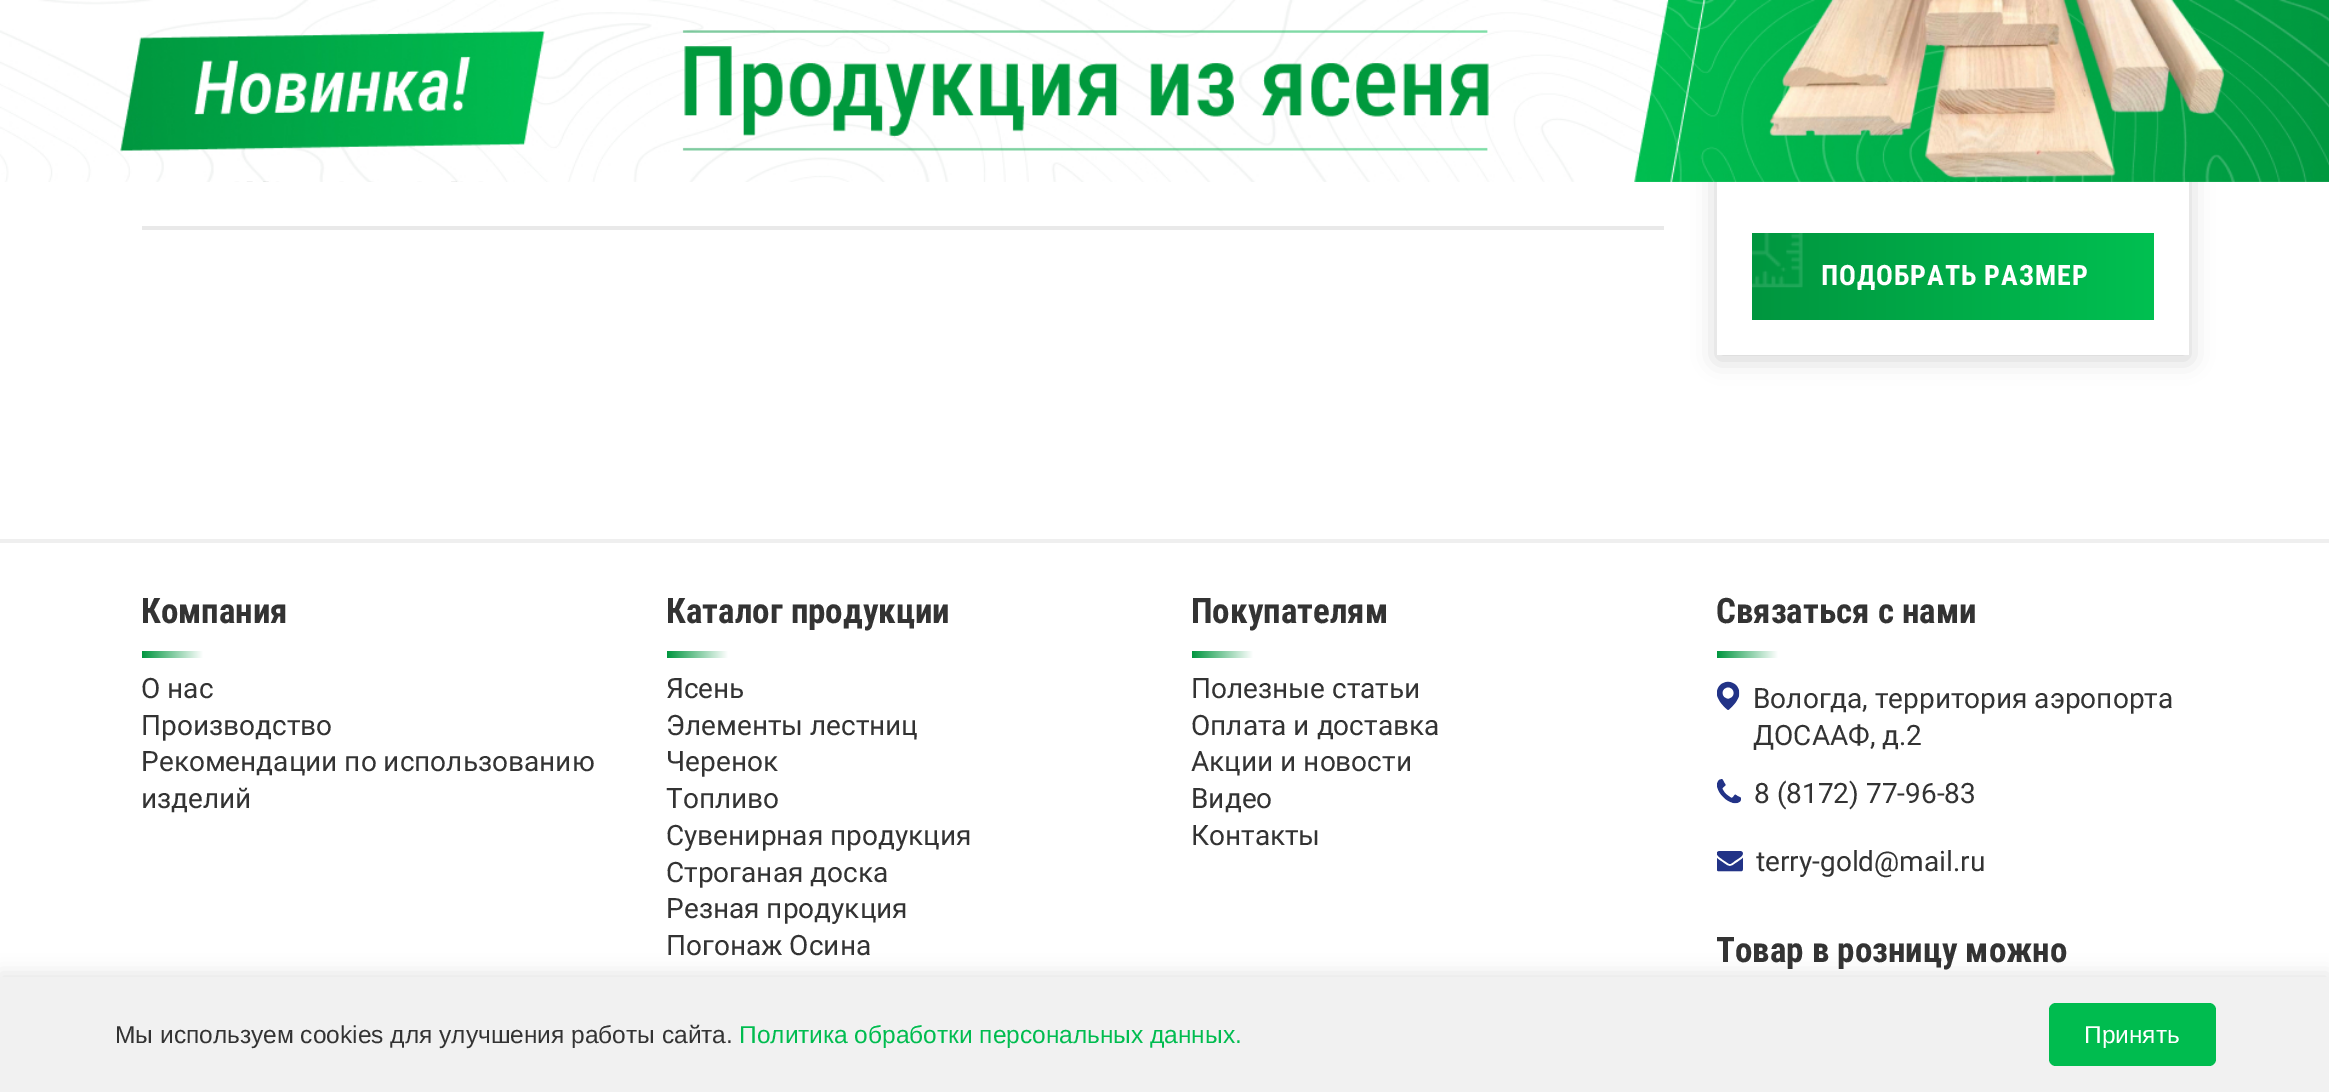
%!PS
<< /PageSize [2329 1092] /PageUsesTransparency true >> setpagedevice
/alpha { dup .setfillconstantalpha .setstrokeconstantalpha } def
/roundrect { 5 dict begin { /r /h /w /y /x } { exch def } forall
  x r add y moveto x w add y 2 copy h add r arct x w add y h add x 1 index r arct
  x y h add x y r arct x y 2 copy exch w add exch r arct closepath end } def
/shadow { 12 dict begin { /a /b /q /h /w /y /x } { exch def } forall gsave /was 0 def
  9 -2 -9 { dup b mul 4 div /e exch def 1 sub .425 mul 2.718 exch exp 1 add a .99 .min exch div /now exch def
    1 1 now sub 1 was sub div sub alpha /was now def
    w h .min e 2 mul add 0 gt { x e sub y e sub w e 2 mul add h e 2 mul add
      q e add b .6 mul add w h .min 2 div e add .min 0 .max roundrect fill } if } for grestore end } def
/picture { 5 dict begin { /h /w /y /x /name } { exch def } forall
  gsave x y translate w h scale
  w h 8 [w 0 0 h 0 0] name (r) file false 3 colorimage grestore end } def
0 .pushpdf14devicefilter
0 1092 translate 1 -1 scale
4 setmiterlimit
1 setgray
0 0 2329 1092 rectfill
gsave
newpath 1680 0 moveto 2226 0 lineto 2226 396 lineto 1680 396 lineto closepath 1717 -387 moveto 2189 -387 lineto 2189 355 lineto 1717 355 lineto closepath eoclip newpath
0 setgray
1717 -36 472 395 0 12 0.18 shadow
grestore
(img1.rgb) 0 0 2329 182 picture
0.914 setgray
142 226 1522 4 rectfill
gsave newpath 1752 233 moveto 2154 233 lineto 2154 320 lineto 1752 320 lineto closepath clip newpath
<< /ShadingType 2 /ColorSpace /DeviceRGB /Coords [1752 277 2154 277] /Extend [true true] /Function << /FunctionType 2 /Domain [0 1] /C0 [0 0.588 0.247] /C1 [0 0.753 0.318] /N 1 >> >> shfill grestore
(img2.rgb) 1752 233 51 55 picture
/RobotoCondensed-Bold [28 0 0 -28 0 0] selectfont
1 setgray
1821 285 moveto 0.9 0 (ПОДОБРАТЬ РАЗМЕР) ashow
0.937 setgray
0 539 2329 4 rectfill
/RobotoCondensed-Bold [35 0 0 -35 0 0] selectfont
0.2 setgray
141 623 moveto (Компания) show
gsave newpath 142 651 moveto 203 651 lineto 203 658 lineto 142 658 lineto closepath clip newpath
<< /ShadingType 2 /ColorSpace /DeviceRGB /Coords [203 655 142 655] /Extend [true true] /Function << /FunctionType 2 /Domain [0 1] /C0 [1 1 1] /C1 [0 0.588 0.247] /N 1 >> >> shfill grestore
/Roboto-Regular [28 0 0 -28 0 0] selectfont
141 698 moveto (О нас) show
141 735 moveto (Производство) show
141 771 moveto (Рекомендации по использованию) show
141 808 moveto (изделий) show
/RobotoCondensed-Bold [35 0 0 -35 0 0] selectfont
666 623 moveto (Каталог продукции) show
gsave newpath 667 651 moveto 728 651 lineto 728 658 lineto 667 658 lineto closepath clip newpath
<< /ShadingType 2 /ColorSpace /DeviceRGB /Coords [728 655 667 655] /Extend [true true] /Function << /FunctionType 2 /Domain [0 1] /C0 [1 1 1] /C1 [0 0.588 0.247] /N 1 >> >> shfill grestore
/Roboto-Regular [28 0 0 -28 0 0] selectfont
666 698 moveto (Ясень) show
666 735 moveto (Элементы лестниц) show
666 771 moveto (Черенок) show
666 808 moveto (Топливо) show
666 845 moveto (Сувенирная продукция) show
666 882 moveto (Строганая доска) show
666 918 moveto (Резная продукция) show
666 955 moveto (Погонаж Осина) show
/RobotoCondensed-Bold [35 0 0 -35 0 0] selectfont
1191 623 moveto (Покупателям) show
gsave newpath 1192 651 moveto 1253 651 lineto 1253 658 lineto 1192 658 lineto closepath clip newpath
<< /ShadingType 2 /ColorSpace /DeviceRGB /Coords [1253 655 1192 655] /Extend [true true] /Function << /FunctionType 2 /Domain [0 1] /C0 [1 1 1] /C1 [0 0.588 0.247] /N 1 >> >> shfill grestore
/Roboto-Regular [28 0 0 -28 0 0] selectfont
1191 698 moveto (Полезные статьи) show
1191 735 moveto (Оплата и доставка) show
1191 771 moveto (Акции и новости) show
1191 808 moveto (Видео) show
1191 845 moveto (Контакты) show
/RobotoCondensed-Bold [35 0 0 -35 0 0] selectfont
1716 623 moveto (Связаться с нами) show
gsave newpath 1717 651 moveto 1778 651 lineto 1778 658 lineto 1717 658 lineto closepath clip newpath
<< /ShadingType 2 /ColorSpace /DeviceRGB /Coords [1778 655 1717 655] /Extend [true true] /Function << /FunctionType 2 /Domain [0 1] /C0 [1 1 1] /C1 [0 0.588 0.247] /N 1 >> >> shfill grestore
(img3.rgb) 1717 681 23 29 picture
/Roboto-Regular [28 0 0 -28 0 0] selectfont
1753 708 moveto (Вологда, территория аэропорта) show
1753 745 moveto (ДОСААФ, д.2) show
(img4.rgb) 1717 779 24 25 picture
1754 803 moveto (8 \(8172\) 77-96-83) show
(img5.rgb) 1717 851 26 21 picture
1756 871 moveto (terry-gold@mail.ru) show
/RobotoCondensed-Bold [35 0 0 -35 0 0] selectfont
1716 962 moveto (Товар в розницу можно) show
0 setgray
0 973 2329 116 0 9 0.1 shadow
0.945 setgray
0 977 2329 115 rectfill
/LiberationSans-Regular [24.5 0 0 -24.5 0 0] selectfont
0.2 setgray
115 1043 moveto (Мы используем cookies для улучшения работы сайта.) show
0 0.737 0.31 setrgbcolor
739 1043 moveto (Политика обработки персональных данных.) show
2049 1003 167 63 7 roundrect fill
1 setgray
2084 1043 moveto (Принять) show
.poppdf14devicefilter showpage
